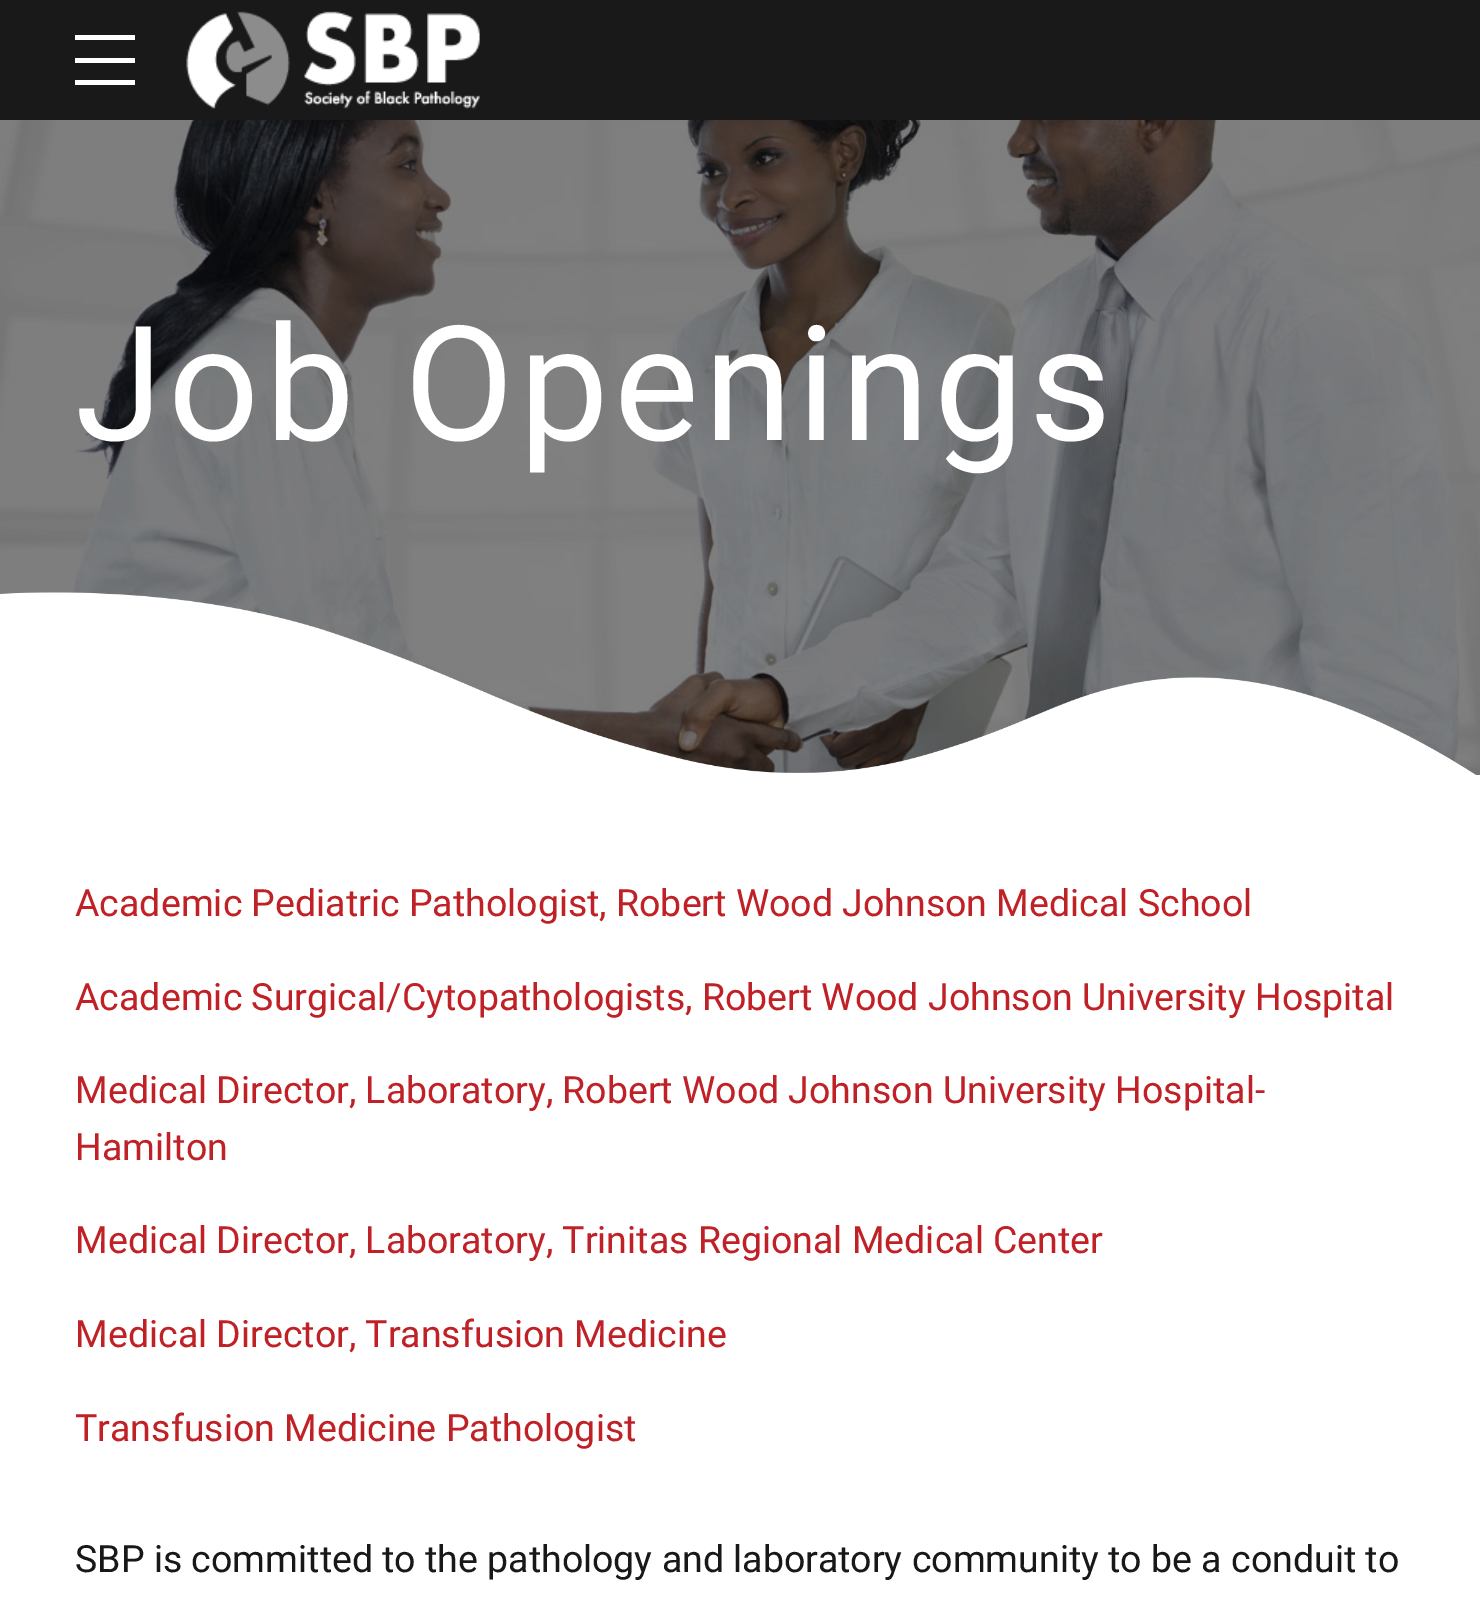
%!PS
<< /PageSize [1480 1600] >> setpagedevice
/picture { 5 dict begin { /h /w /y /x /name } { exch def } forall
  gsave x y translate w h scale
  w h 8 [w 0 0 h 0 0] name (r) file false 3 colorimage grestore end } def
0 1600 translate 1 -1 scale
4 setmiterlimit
1 setgray
0 0 1480 1600 rectfill
0.098 setgray
0 0 1480 120 rectfill
1 setgray
75 35 60 5 rectfill
75 58 60 5 rectfill
75 80 60 5 rectfill
(img1.rgb) 186 11 294 98 picture
(img2.rgb) 0 120 1480 655 picture
/Roboto-Regular [160 0 0 -160 0 0] selectfont
75 440 moveto 5 0 (Job Openings) ashow
(img3.rgb) 0 592 1476 183 picture
/Roboto-Regular [37.5 0 0 -37.5 0 0] selectfont
0.749 0.129 0.149 setrgbcolor
75 916 moveto (Academic Pediatric Pathologist, Robert Wood Johnson Medical School) show
75 1010 moveto (Academic Surgical/Cytopathologists, Robert Wood Johnson University Hospital) show
75 1103 moveto (Medical Director, Laboratory, Robert Wood Johnson University Hospital-) show
75 1160 moveto (Hamilton) show
75 1253 moveto (Medical Director, Laboratory, Trinitas Regional Medical Center) show
75 1347 moveto (Medical Director, Transfusion Medicine) show
75 1441 moveto (Transfusion Medicine Pathologist) show
0.094 setgray
75 1572 moveto (SBP is committed to the pathology and laboratory community to be a conduit to) show
showpage
